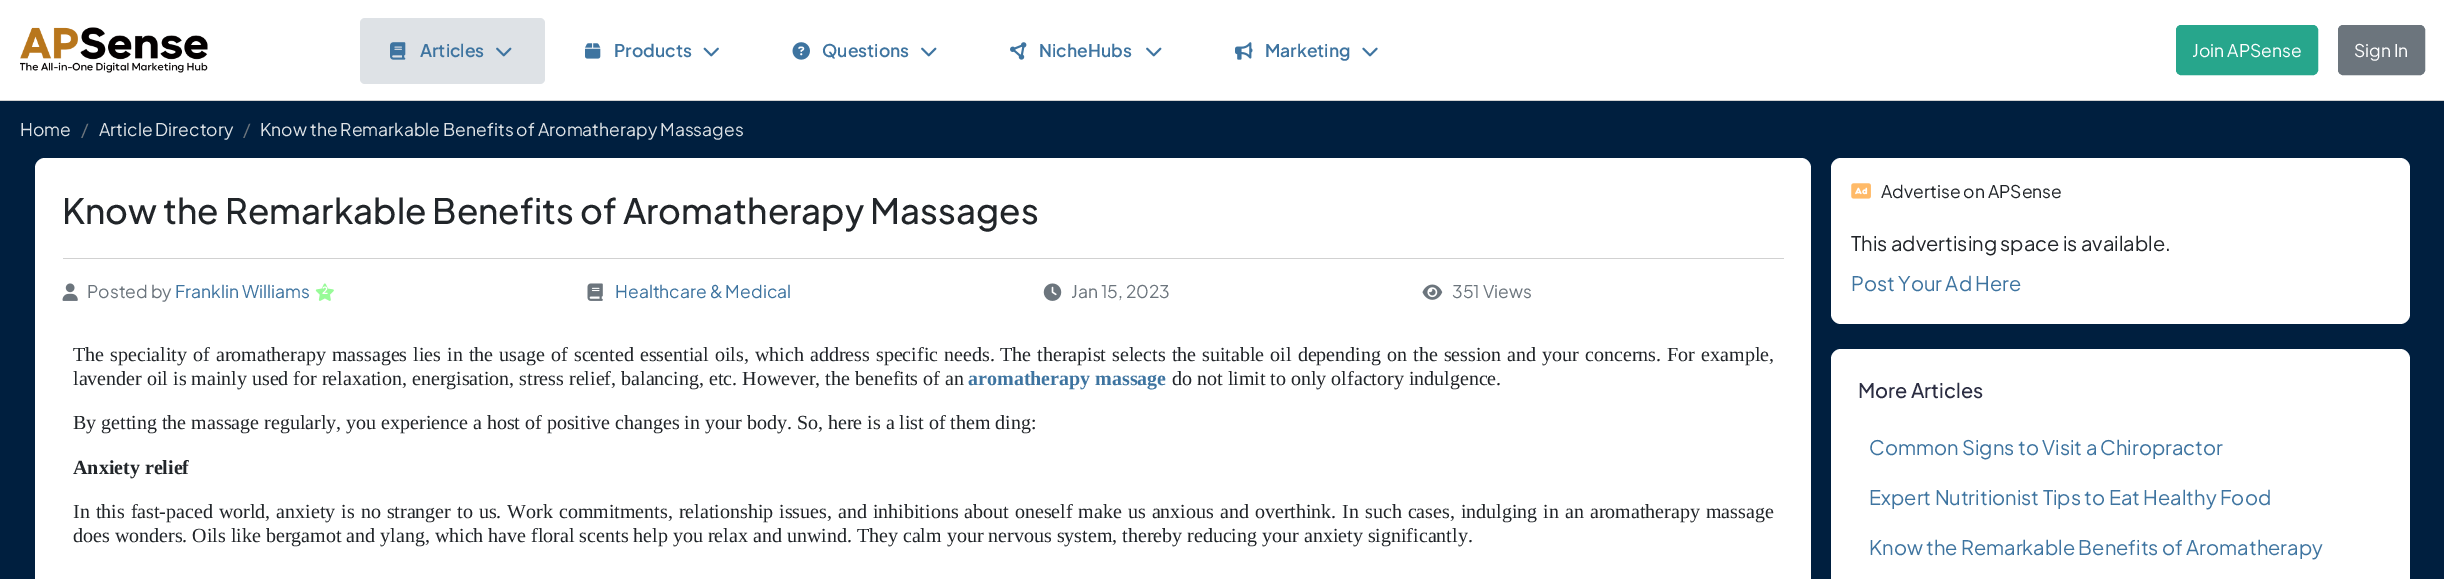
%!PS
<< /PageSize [2444 579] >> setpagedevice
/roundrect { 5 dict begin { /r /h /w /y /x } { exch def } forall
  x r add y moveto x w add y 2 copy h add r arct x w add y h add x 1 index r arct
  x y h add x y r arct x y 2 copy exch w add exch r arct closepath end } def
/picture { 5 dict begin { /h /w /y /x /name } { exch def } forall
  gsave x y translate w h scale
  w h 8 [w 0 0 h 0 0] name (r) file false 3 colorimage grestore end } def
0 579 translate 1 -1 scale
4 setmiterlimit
0 0.122 0.247 setrgbcolor
0 0 2444 579 rectfill
1 setgray
0 0 2444 100 rectfill
0.82 setgray
0 100 2444 1 rectfill
(img1.rgb) 20 27 188 46 picture
0.871 0.886 0.902 setrgbcolor
360 18 185 66 5 roundrect fill
(img2.rgb) 390 42 16 18 picture
/PlusJakartaSans-SemiBold [17.5 0 0 -17.5 0 0] selectfont
0.243 0.455 0.627 setrgbcolor
420 57 moveto (Articles) show
(img3.rgb) 496 47 16 10 picture
(img4.rgb) 585 43 16 16 picture
614 57 moveto (Products) show
(img5.rgb) 703 47 16 10 picture
(img6.rgb) 792 42 18 18 picture
822 57 moveto (Questions) show
(img7.rgb) 921 47 16 10 picture
(img8.rgb) 1010 42 17 18 picture
1039 57 moveto (NicheHubs) show
(img7.rgb) 1146 47 16 10 picture
(img9.rgb) 1235 42 18 18 picture
1265 57 moveto (Marketing) show
(img10.rgb) 1362 47 16 10 picture
0.153 0.651 0.549 setrgbcolor
2176.5 25.5 141 49 4.5 roundrect gsave fill grestore
stroke
/PlusJakartaSans-Regular [17.5 0 0 -17.5 0 0] selectfont
1 setgray
2192 57 moveto (Join APSense) show
0.424 0.459 0.49 setrgbcolor
2338.5 25.5 86 49 4.5 roundrect gsave fill grestore
stroke
1 setgray
2354 57 moveto (Sign In) show
0.871 0.886 0.902 setrgbcolor
20 136 moveto (Home) show
0.424 0.459 0.49 setrgbcolor
81 136 moveto (/) show
0.871 0.886 0.902 setrgbcolor
99 136 moveto (Article Directory) show
0.424 0.459 0.49 setrgbcolor
243 136 moveto (/) show
0.871 0.886 0.902 setrgbcolor
260 136 moveto (Know the Remarkable Benefits of Aromatherapy Massages) show
1 setgray
35 158 1776 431 10 roundrect fill
0.82 setgray
63 258 1721 1 rectfill
/PlusJakartaSans-Medium [35 0 0 -35 0 0] selectfont
0.129 0.145 0.161 setrgbcolor
62 224 moveto (Know the Remarkable Benefits of Aromatherapy Massages) show
(img11.rgb) 62 283 16 18 picture
/PlusJakartaSans-Regular [17.5 0 0 -17.5 0 0] selectfont
0.424 0.459 0.49 setrgbcolor
87 298 moveto (Posted by) show
0.243 0.455 0.627 setrgbcolor
175 298 moveto (Franklin Williams) show
(img12.rgb) 315 283 19 18 picture
/PlusJakartaSans-Bold [10 0 0 -10 0 0] selectfont
1 setgray
322 294 moveto (2) show
(img13.rgb) 587 283 16 18 picture
/PlusJakartaSans-Regular [17.5 0 0 -17.5 0 0] selectfont
0.243 0.455 0.627 setrgbcolor
615 298 moveto (Healthcare & Medical) show
(img14.rgb) 1043 283 19 18 picture
0.424 0.459 0.49 setrgbcolor
1071 298 moveto (Jan 15, 2023) show
(img15.rgb) 1422 284 21 16 picture
1452 298 moveto (351 Views) show
/LiberationSerif-Regular [20 0 0 -20 0 0] selectfont
0.129 0.145 0.161 setrgbcolor
73 361 moveto 1.1 0 32 (The speciality of aromatherapy massages lies in the usage of scented essential oils, which address specific needs.) widthshow
1000 361 moveto 1.1 0 32 (The therapist selects the suitable oil depending on the session and your concerns. For example,) widthshow
73 385 moveto (lavender oil is mainly used for relaxation, energisation, stress relief, balancing, etc. However, the benefits of an) show
/LiberationSerif-Bold [20 0 0 -20 0 0] selectfont
0.243 0.455 0.627 setrgbcolor
968 385 moveto (aromatherapy massage) show
/LiberationSerif-Regular [20 0 0 -20 0 0] selectfont
0.129 0.145 0.161 setrgbcolor
1172 385 moveto (do not limit to only olfactory indulgence.) show
73 429 moveto (By getting the massage regularly, you experience a host of positive changes in your body. So, here is a list of them ding:) show
/LiberationSerif-Bold [20 0 0 -20 0 0] selectfont
73 474 moveto (Anxiety relief) show
/LiberationSerif-Regular [20 0 0 -20 0 0] selectfont
73 518 moveto 1 0 32 (In this fast-paced world, anxiety is no stranger to us. Work commitments, relationship issues, and inhibitions about oneself make us anxious and overthink. In such cases, indulging in an aromatherapy massage) widthshow
73 542 moveto (does wonders. Oils like bergamot and ylang, which have floral scents help you relax and unwind. They calm your nervous system, thereby reducing your anxiety significantly.) show
1 setgray
1831 158 579 166 10 roundrect fill
(img16.rgb) 1851 183 20 16 picture
/PlusJakartaSans-Regular [17.5 0 0 -17.5 0 0] selectfont
0.129 0.145 0.161 setrgbcolor
1881 198 moveto (Advertise on APSense) show
/PlusJakartaSans-Regular [20 0 0 -20 0 0] selectfont
1851 251 moveto (This advertising space is available.) show
0.243 0.455 0.627 setrgbcolor
1851 291 moveto (Post Your Ad Here) show
1 setgray
1831 349 579 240 10 roundrect fill
/PlusJakartaSans-Medium [20 0 0 -20 0 0] selectfont
0.169 0.176 0.259 setrgbcolor
1858 398 moveto (More Articles) show
/PlusJakartaSans-Regular [20 0 0 -20 0 0] selectfont
0.243 0.455 0.627 setrgbcolor
1869 455 moveto (Common Signs to Visit a Chiropractor) show
1869 505 moveto (Expert Nutritionist Tips to Eat Healthy Food) show
1869 555 moveto (Know the Remarkable Benefits of Aromatherapy) show
showpage
